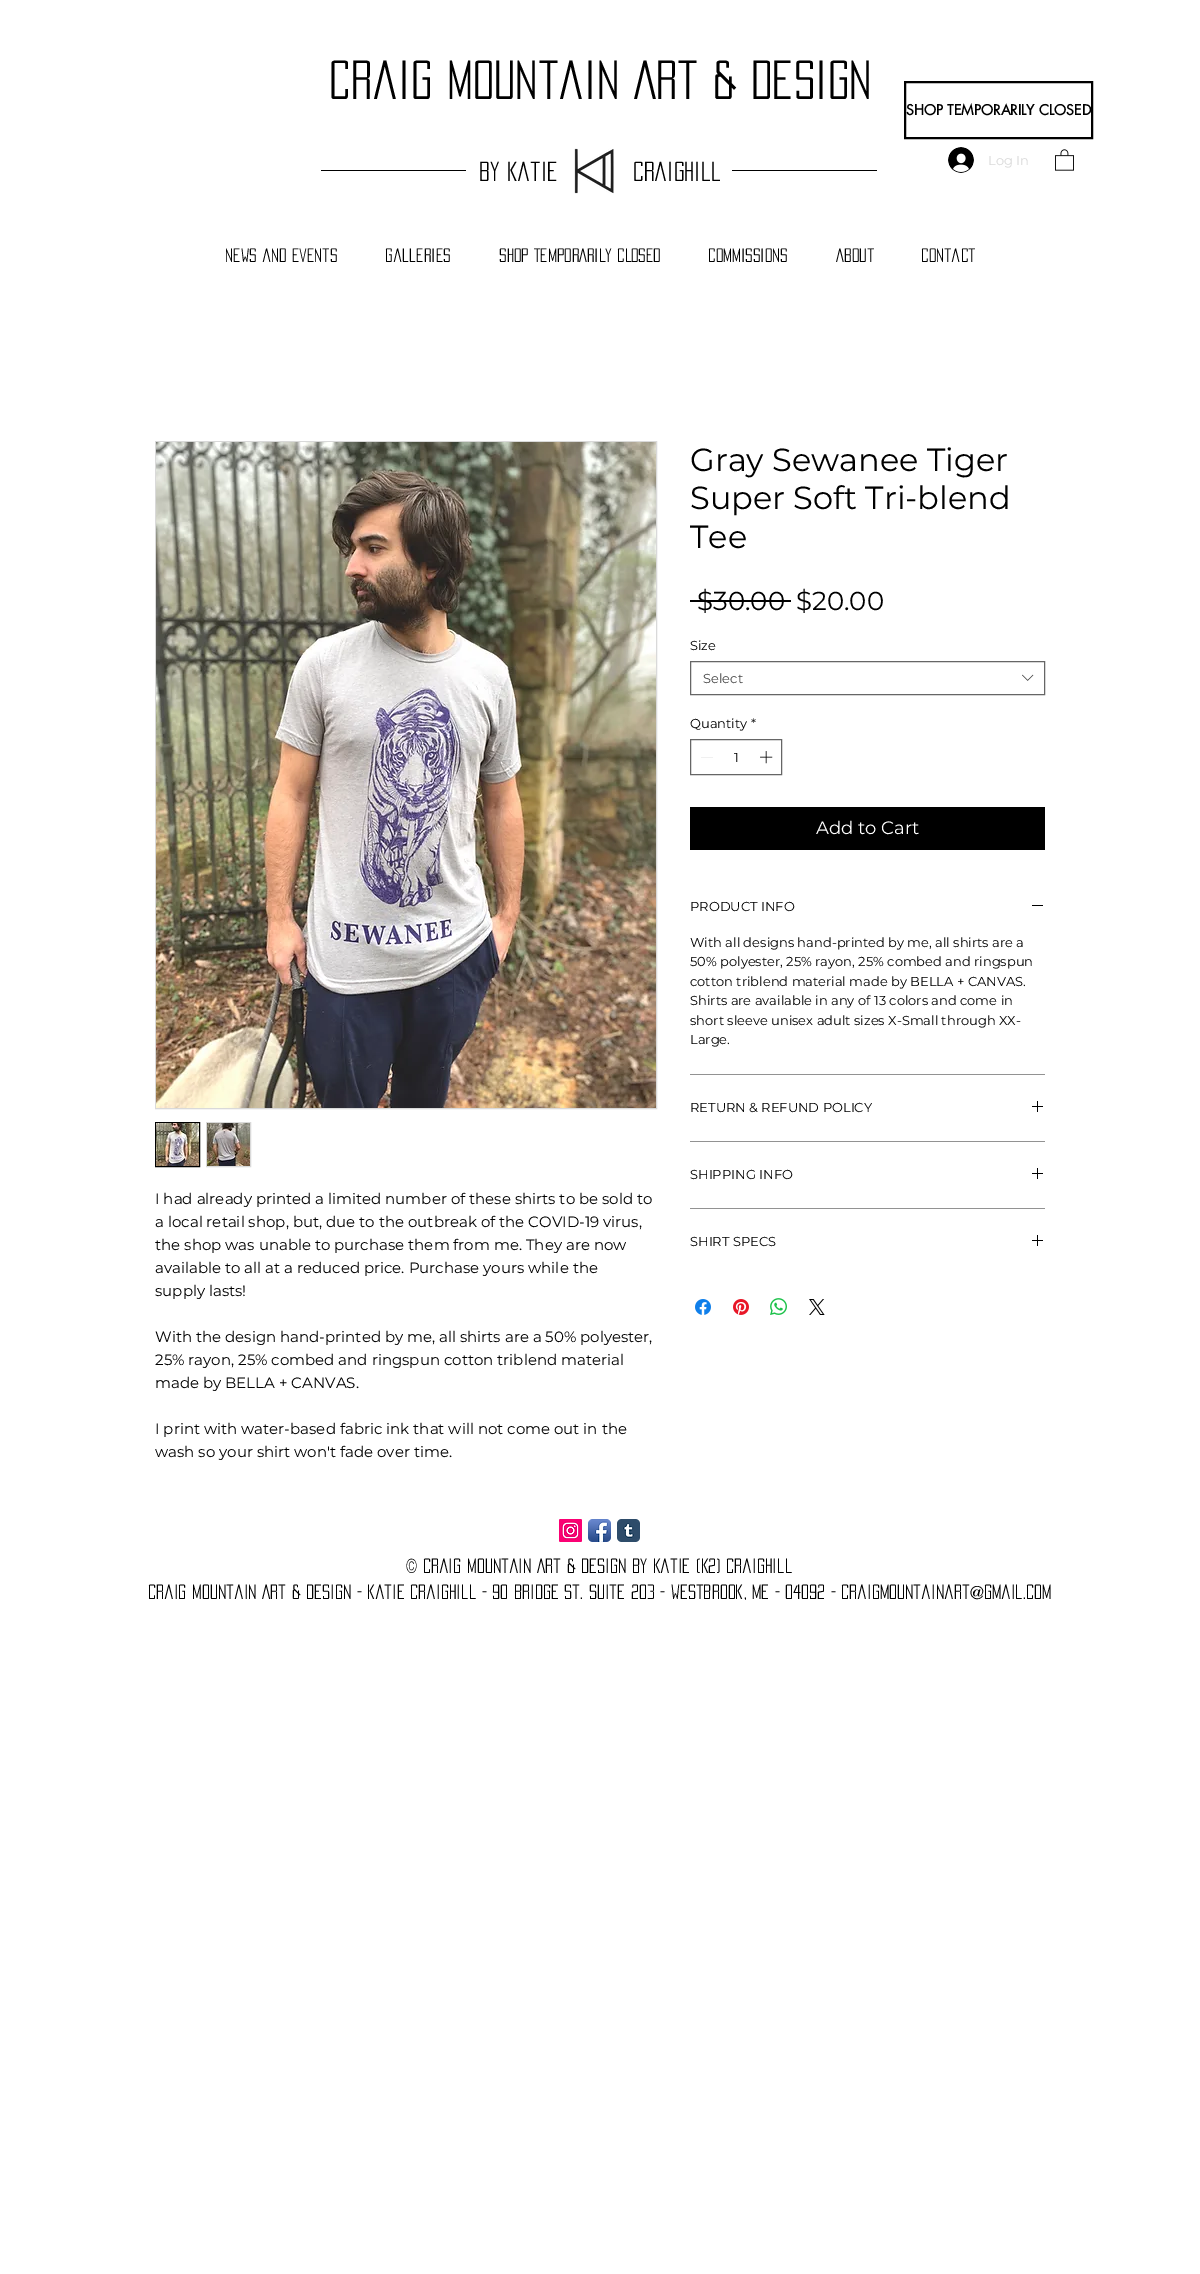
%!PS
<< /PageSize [1200 2274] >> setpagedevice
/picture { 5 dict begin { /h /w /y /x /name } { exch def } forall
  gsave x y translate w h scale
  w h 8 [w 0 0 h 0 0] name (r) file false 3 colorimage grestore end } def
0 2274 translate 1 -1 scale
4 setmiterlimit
1 setgray
0 0 1200 2274 rectfill
/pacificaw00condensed-Regular [48 0 0 -48 0 0] selectfont
0 setgray
329 99 moveto (craig Mountain Art & Design) show
2 setlinewidth
905 82 187 56 rectstroke
/futura-Bold [14 0 0 -14 0 0] selectfont
906 115 moveto (SHOP TEMPORARILY CLOSED) show
/pacificaw00condensed-Regular [24 0 0 -24 0 0] selectfont
479 181 moveto (by Katie) show
633 181 moveto (Craighill) show
(img1.rgb) 574 148 40 46 picture
(img2.rgb) 948 147 26 26 picture
/Montserrat-Regular [13 0 0 -13 0 0] selectfont
0.851 setgray
988 165 moveto (Log In) show
(img3.rgb) 1055 149 19 22 picture
0 setgray
321 170 145 1 rectfill
732 170 145 1 rectfill
/pacificaw00condensed-Regular [17 0 0 -17 0 0] selectfont
225 262 moveto (News and Events) show
385 262 moveto (Galleries) show
499 262 moveto (SHOP TEMPORARILY CLOSED) show
708 262 moveto (Commissions) show
836 262 moveto (About) show
921 262 moveto (Contact) show
/Montserrat-Regular [32 0 0 -32 0 0] selectfont
690 471 moveto (Gray Sewanee Tiger) show
690 509 moveto (Super Soft Tri-blend) show
690 548 moveto (Tee) show
/Montserrat-Regular [26 0 0 -26 0 0] selectfont
697 610 moveto ($30.00) show
690 600 101 2 rectfill
796 610 moveto ($20.00) show
/Montserrat-Regular [13 0 0 -13 0 0] selectfont
690 650 moveto (Size) show
0.4 setgray
1 setlinewidth
690.5 661.5 354 33 rectstroke
0.267 setgray
703 683 moveto (Select) show
(img4.rgb) 1022 674 12 7 picture
0 setgray
690 728 moveto (Quantity) show
751 728 moveto (*) show
0.4 setgray
690.5 739.5 91 35 rectstroke
0.89 setgray
newpath 713 757 moveto 713 757.5 lineto 701 757.5 lineto 701 757 lineto closepath eofill
0 setgray
734 762 moveto (1) show
(img5.rgb) 760 751 13 13 picture
690 807 355 43 rectfill
/Montserrat-Regular [18 0 0 -18 0 0] selectfont
1 setgray
816 834 moveto (Add to Cart) show
0.573 setgray
690 1074 355 1 rectfill
/Montserrat-Regular [13 0 0 -13 0 0] selectfont
0 setgray
690 911 moveto (PRODUCT INFO) show
1032 905 11 1 rectfill
690 947 moveto (With all designs hand-printed by me, all shirts are a) show
690 966 moveto (50% polyester, 25% rayon, 25% combed and ringspun) show
690 986 moveto (cotton triblend material made by BELLA + CANVAS.) show
690 1005 moveto (Shirts are available in any of 13 colors and come in) show
690 1025 moveto (short sleeve unisex adult sizes X-Small through XX-) show
690 1044 moveto (Large.) show
0.573 setgray
690 1141 355 1 rectfill
0 setgray
690 1112 moveto (RETURN & REFUND POLICY) show
(img6.rgb) 1032 1101 11 11 picture
0.573 setgray
690 1208 355 1 rectfill
0 setgray
690 1179 moveto (SHIPPING INFO) show
(img6.rgb) 1032 1168 11 11 picture
690 1246 moveto (SHIRT SPECS) show
(img6.rgb) 1032 1235 11 11 picture
(img7.rgb) 695 1299 16 16 picture
(img8.rgb) 733 1299 16 16 picture
(img9.rgb) 770 1298 17 17 picture
(img10.rgb) 809 1299 16 16 picture
0.851 setgray
155.5 441.5 501 667 rectstroke
(img11.rgb) 156 442 500 666 picture
0 setgray
155.5 1122.5 44 44 rectstroke
(img12.rgb) 156 1123 43 43 picture
0.851 setgray
206.5 1122.5 44 44 rectstroke
(img13.rgb) 207 1123 43 43 picture
/Montserrat-Regular [15 0 0 -15 0 0] selectfont
0 setgray
155 1204 moveto (I had already printed a limited number of these shirts to be sold to) show
155 1227 moveto (a local retail shop, but, due to the outbreak of the COVID-19 virus,) show
155 1250 moveto (the shop was unable to purchase them from me. They are now) show
155 1273 moveto (available to all at a reduced price. Purchase yours while the) show
155 1296 moveto (supply lasts!) show
155 1342 moveto (With the design hand-printed by me, all shirts are a 50% polyester,) show
155 1365 moveto (25% rayon, 25% combed and ringspun cotton triblend material) show
155 1388 moveto (made by BELLA + CANVAS.) show
155 1434 moveto (I print with water-based fabric ink that will not come out in the) show
155 1457 moveto (wash so your shirt won't fade over time.) show
(img14.rgb) 559 1519 23 23 picture
(img15.rgb) 588 1519 23 23 picture
(img16.rgb) 617 1519 23 23 picture
/pacificaw00condensed-Regular [18 0 0 -18 0 0] selectfont
406 1573 moveto (© Craig Mountain Art & Design by Katie \(K2\) Craighill) show
148 1599 moveto (Craig Mountain Art & Design - Katie Craighill - 90 Bridge st. suite 203 - westbrook, me - 04092 - craigmountainart@gmail.com) show
showpage
